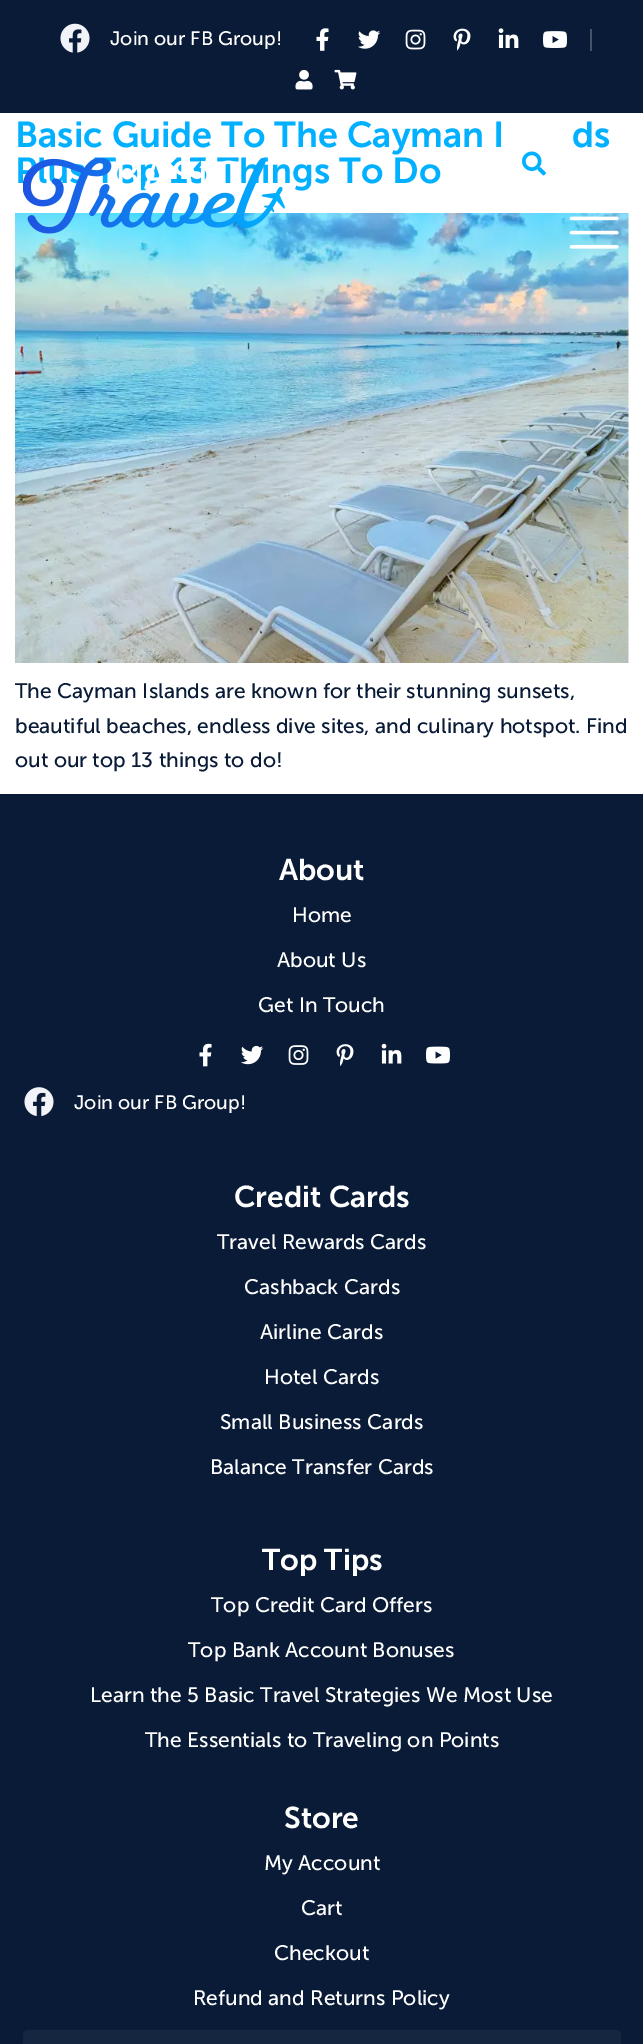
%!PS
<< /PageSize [643 2044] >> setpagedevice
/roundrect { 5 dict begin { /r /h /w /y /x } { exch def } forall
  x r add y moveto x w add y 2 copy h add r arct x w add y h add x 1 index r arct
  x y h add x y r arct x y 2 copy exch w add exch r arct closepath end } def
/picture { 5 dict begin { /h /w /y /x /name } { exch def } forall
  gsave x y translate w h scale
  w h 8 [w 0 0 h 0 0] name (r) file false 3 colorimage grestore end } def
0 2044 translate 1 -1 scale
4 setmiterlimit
1 setgray
0 0 643 2044 rectfill
0.035 0.106 0.212 setrgbcolor
0 0 643 113 rectfill
(img1.rgb) 60 23 30 30 picture
/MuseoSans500-Regular [19.5 0 0 -19.5 0 0] selectfont
1 setgray
110 45 moveto (Join our FB Group!) show
0.275 0.325 0.412 setrgbcolor
590 29 2 22 rectfill
(img2.rgb) 316 28 13 23 picture
(img3.rgb) 358 30 23 19 picture
(img4.rgb) 405 29 21 21 picture
(img5.rgb) 453 28 18 23 picture
(img6.rgb) 498 28 21 20 picture
(img7.rgb) 543 31 24 17 picture
(img8.rgb) 295 69 18 21 picture
(img9.rgb) 334 69 23 21 picture
/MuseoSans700-SemiBold [36 0 0 -36 0 0] selectfont
0.004 0.69 1 setrgbcolor
15 183 moveto (Plus Top 13 Things To Do) show
(img13.rgb) 15 213 614 450 picture
(img10.rgb) 23 158 262 76 picture
(img11.rgb) 522 151 24 25 picture
(img12.rgb) 569 216 50 33 picture
15 147 moveto (Basic Guide To The Cayman I) show
572 147 moveto (ds) show
/MuseoSans500-Regular [21 0 0 -21 0 0] selectfont
0.035 0.106 0.212 setrgbcolor
15 698 moveto (The Cayman Islands are known for their stunning sunsets,) show
15 733 moveto (beautiful beaches, endless dive sites, and culinary hotspot. Find) show
15 767 moveto (out our top 13 things to do!) show
0 794 643 1250 rectfill
/MuseoSans700-SemiBold [30 0 0 -30 0 0] selectfont
1 setgray
279 880 moveto (About) show
/MuseoSans500-Regular [21 0 0 -21 0 0] selectfont
292 922 moveto (Home) show
277 967 moveto (About Us) show
258 1012 moveto (Get In Touch) show
(img14.rgb) 199 1043 13 24 picture
(img15.rgb) 241 1045 23 20 picture
(img16.rgb) 288 1045 21 20 picture
(img17.rgb) 336 1044 18 22 picture
(img18.rgb) 381 1043 21 21 picture
(img19.rgb) 426 1046 24 18 picture
(img20.rgb) 24 1087 30 30 picture
/MuseoSans500-Regular [19.5 0 0 -19.5 0 0] selectfont
74 1109 moveto (Join our FB Group!) show
/MuseoSans700-SemiBold [30 0 0 -30 0 0] selectfont
234 1207 moveto (Credit Cards) show
/MuseoSans500-Regular [21 0 0 -21 0 0] selectfont
217 1249 moveto (Travel Rewards Cards) show
244 1294 moveto (Cashback Cards) show
260 1339 moveto (Airline Cards) show
264 1384 moveto (Hotel Cards) show
220 1429 moveto (Small Business Cards) show
210 1474 moveto (Balance Transfer Cards) show
/MuseoSans700-SemiBold [30 0 0 -30 0 0] selectfont
262 1570 moveto (Top Tips) show
/MuseoSans500-Regular [21 0 0 -21 0 0] selectfont
211 1612 moveto (Top Credit Card Offers) show
188 1657 moveto (Top Bank Account Bonuses) show
90 1702 moveto (Learn the 5 Basic Travel Strategies We Most Use) show
145 1747 moveto (The Essentials to Traveling on Points) show
/MuseoSans700-SemiBold [30 0 0 -30 0 0] selectfont
284 1828 moveto (Store) show
/MuseoSans500-Regular [21 0 0 -21 0 0] selectfont
264 1870 moveto (My Account) show
301 1915 moveto (Cart) show
274 1960 moveto (Checkout) show
193 2005 moveto (Refund and Returns Policy) show
0.082 0.149 0.251 setrgbcolor
23 2030 598 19 5 roundrect fill
showpage
